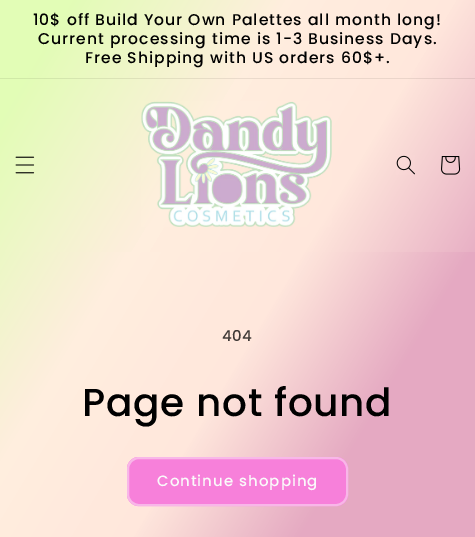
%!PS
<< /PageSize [475 537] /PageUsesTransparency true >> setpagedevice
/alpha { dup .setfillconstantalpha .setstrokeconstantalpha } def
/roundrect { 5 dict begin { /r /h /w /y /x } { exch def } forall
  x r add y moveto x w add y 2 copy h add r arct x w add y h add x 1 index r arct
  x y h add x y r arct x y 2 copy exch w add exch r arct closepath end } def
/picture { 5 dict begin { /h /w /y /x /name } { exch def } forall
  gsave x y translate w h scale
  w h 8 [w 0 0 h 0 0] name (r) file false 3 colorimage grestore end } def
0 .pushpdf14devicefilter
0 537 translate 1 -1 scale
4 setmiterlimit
1 setgray
0 0 475 537 rectfill
gsave newpath 0 252 moveto 475 252 lineto 475 537 lineto 0 537 lineto closepath clip newpath
<< /ShadingType 2 /ColorSpace /DeviceRGB /Coords [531 445 -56 92] /Extend [true true] /Function << /FunctionType 3 /Domain [0 1] /Functions [<< /FunctionType 2 /Domain [0 1] /C0 [0.898 0.663 0.761] /C1 [0.898 0.663 0.761] /N 1 >> << /FunctionType 2 /Domain [0 1] /C0 [0.898 0.663 0.761] /C1 [1 0.906 0.863] /N 1 >> << /FunctionType 2 /Domain [0 1] /C0 [1 0.906 0.863] /C1 [1 0.933 0.871] /N 1 >> << /FunctionType 2 /Domain [0 1] /C0 [1 0.933 0.871] /C1 [0.886 0.992 0.714] /N 1 >> << /FunctionType 2 /Domain [0 1] /C0 [0.886 0.992 0.714] /C1 [0.898 0.675 0.729] /N 1 >>] /Bounds [0.22 0.43 0.65 0.9] /Encode [0 1 0 1 0 1 0 1 0 1] >> >> shfill grestore
gsave newpath 0 0 moveto 475 0 lineto 475 78 lineto 0 78 lineto closepath clip newpath
<< /ShadingType 2 /ColorSpace /DeviceRGB /Coords [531 445 -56 92] /Extend [true true] /Function << /FunctionType 3 /Domain [0 1] /Functions [<< /FunctionType 2 /Domain [0 1] /C0 [0.898 0.663 0.761] /C1 [0.898 0.663 0.761] /N 1 >> << /FunctionType 2 /Domain [0 1] /C0 [0.898 0.663 0.761] /C1 [1 0.906 0.863] /N 1 >> << /FunctionType 2 /Domain [0 1] /C0 [1 0.906 0.863] /C1 [1 0.933 0.871] /N 1 >> << /FunctionType 2 /Domain [0 1] /C0 [1 0.933 0.871] /C1 [0.886 0.992 0.714] /N 1 >> << /FunctionType 2 /Domain [0 1] /C0 [0.886 0.992 0.714] /C1 [0.886 0.992 0.714] /N 1 >>] /Bounds [0.19 0.43 0.64 0.91] /Encode [0 1 0 1 0 1 0 1 0 1] >> >> shfill grestore
gsave newpath 0 78 moveto 475 78 lineto 475 79 lineto 0 79 lineto closepath clip newpath
<< /ShadingType 2 /ColorSpace /DeviceRGB /Coords [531 445 -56 92] /Extend [true true] /Function << /FunctionType 3 /Domain [0 1] /Functions [<< /FunctionType 2 /Domain [0 1] /C0 [0.827 0.608 0.698] /C1 [0.827 0.608 0.698] /N 1 >> << /FunctionType 2 /Domain [0 1] /C0 [0.827 0.608 0.698] /C1 [0.922 0.835 0.792] /N 1 >> << /FunctionType 2 /Domain [0 1] /C0 [0.922 0.835 0.792] /C1 [0.922 0.859 0.8] /N 1 >> << /FunctionType 2 /Domain [0 1] /C0 [0.922 0.859 0.8] /C1 [0.816 0.914 0.655] /N 1 >> << /FunctionType 2 /Domain [0 1] /C0 [0.816 0.914 0.655] /C1 [0.816 0.914 0.655] /N 1 >>] /Bounds [0.19 0.43 0.64 0.91] /Encode [0 1 0 1 0 1 0 1 0 1] >> >> shfill grestore
/Poppins-Medium [15.6 0 0 -15.6 0 0] selectfont
0 setgray
33 25 moveto 1 0 (10$ off Build Your Own Palettes all month long!) ashow
38 44 moveto 1 0 (Current processing time is 1-3 Business Days.) ashow
85 63 moveto 1 0 (Free Shipping with US orders 60$+.) ashow
gsave newpath 0 79 moveto 475 79 lineto 475 252 lineto 0 252 lineto closepath clip newpath
<< /ShadingType 2 /ColorSpace /DeviceRGB /Coords [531 445 -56 92] /Extend [true true] /Function << /FunctionType 3 /Domain [0 1] /Functions [<< /FunctionType 2 /Domain [0 1] /C0 [0.898 0.663 0.761] /C1 [0.898 0.663 0.761] /N 1 >> << /FunctionType 2 /Domain [0 1] /C0 [0.898 0.663 0.761] /C1 [1 0.906 0.863] /N 1 >> << /FunctionType 2 /Domain [0 1] /C0 [1 0.906 0.863] /C1 [1 0.933 0.871] /N 1 >> << /FunctionType 2 /Domain [0 1] /C0 [1 0.933 0.871] /C1 [0.886 0.992 0.714] /N 1 >> << /FunctionType 2 /Domain [0 1] /C0 [0.886 0.992 0.714] /C1 [0.886 0.992 0.714] /N 1 >>] /Bounds [0.19 0.43 0.64 0.91] /Encode [0 1 0 1 0 1 0 1 0 1] >> >> shfill grestore
(img1.rgb) 15 156 20 18 picture
(img2.rgb) 141 101 191 126 picture
(img3.rgb) 396 155 19 20 picture
(img4.rgb) 441 156 20 19 picture
/Poppins-Medium [15 0 0 -15 0 0] selectfont
0.251 0.227 0.216 setrgbcolor
222 341 moveto 0.5 0 (404) ashow
/Poppins-Medium [39 0 0 -39 0 0] selectfont
0 setgray
82 416 moveto 0.75 0 (Page not found) ashow
0.969 0.502 0.855 setrgbcolor
127 457 221 49 12 roundrect fill
2 setlinewidth
128 458 219 47 11 roundrect stroke
0.45 alpha
0.98 setgray
128 458 219 47 11 roundrect stroke
/Poppins-Medium [15 0 0 -15 0 0] selectfont
1 alpha
157 486 moveto 1 0 (Continue shopping) ashow
.poppdf14devicefilter showpage
